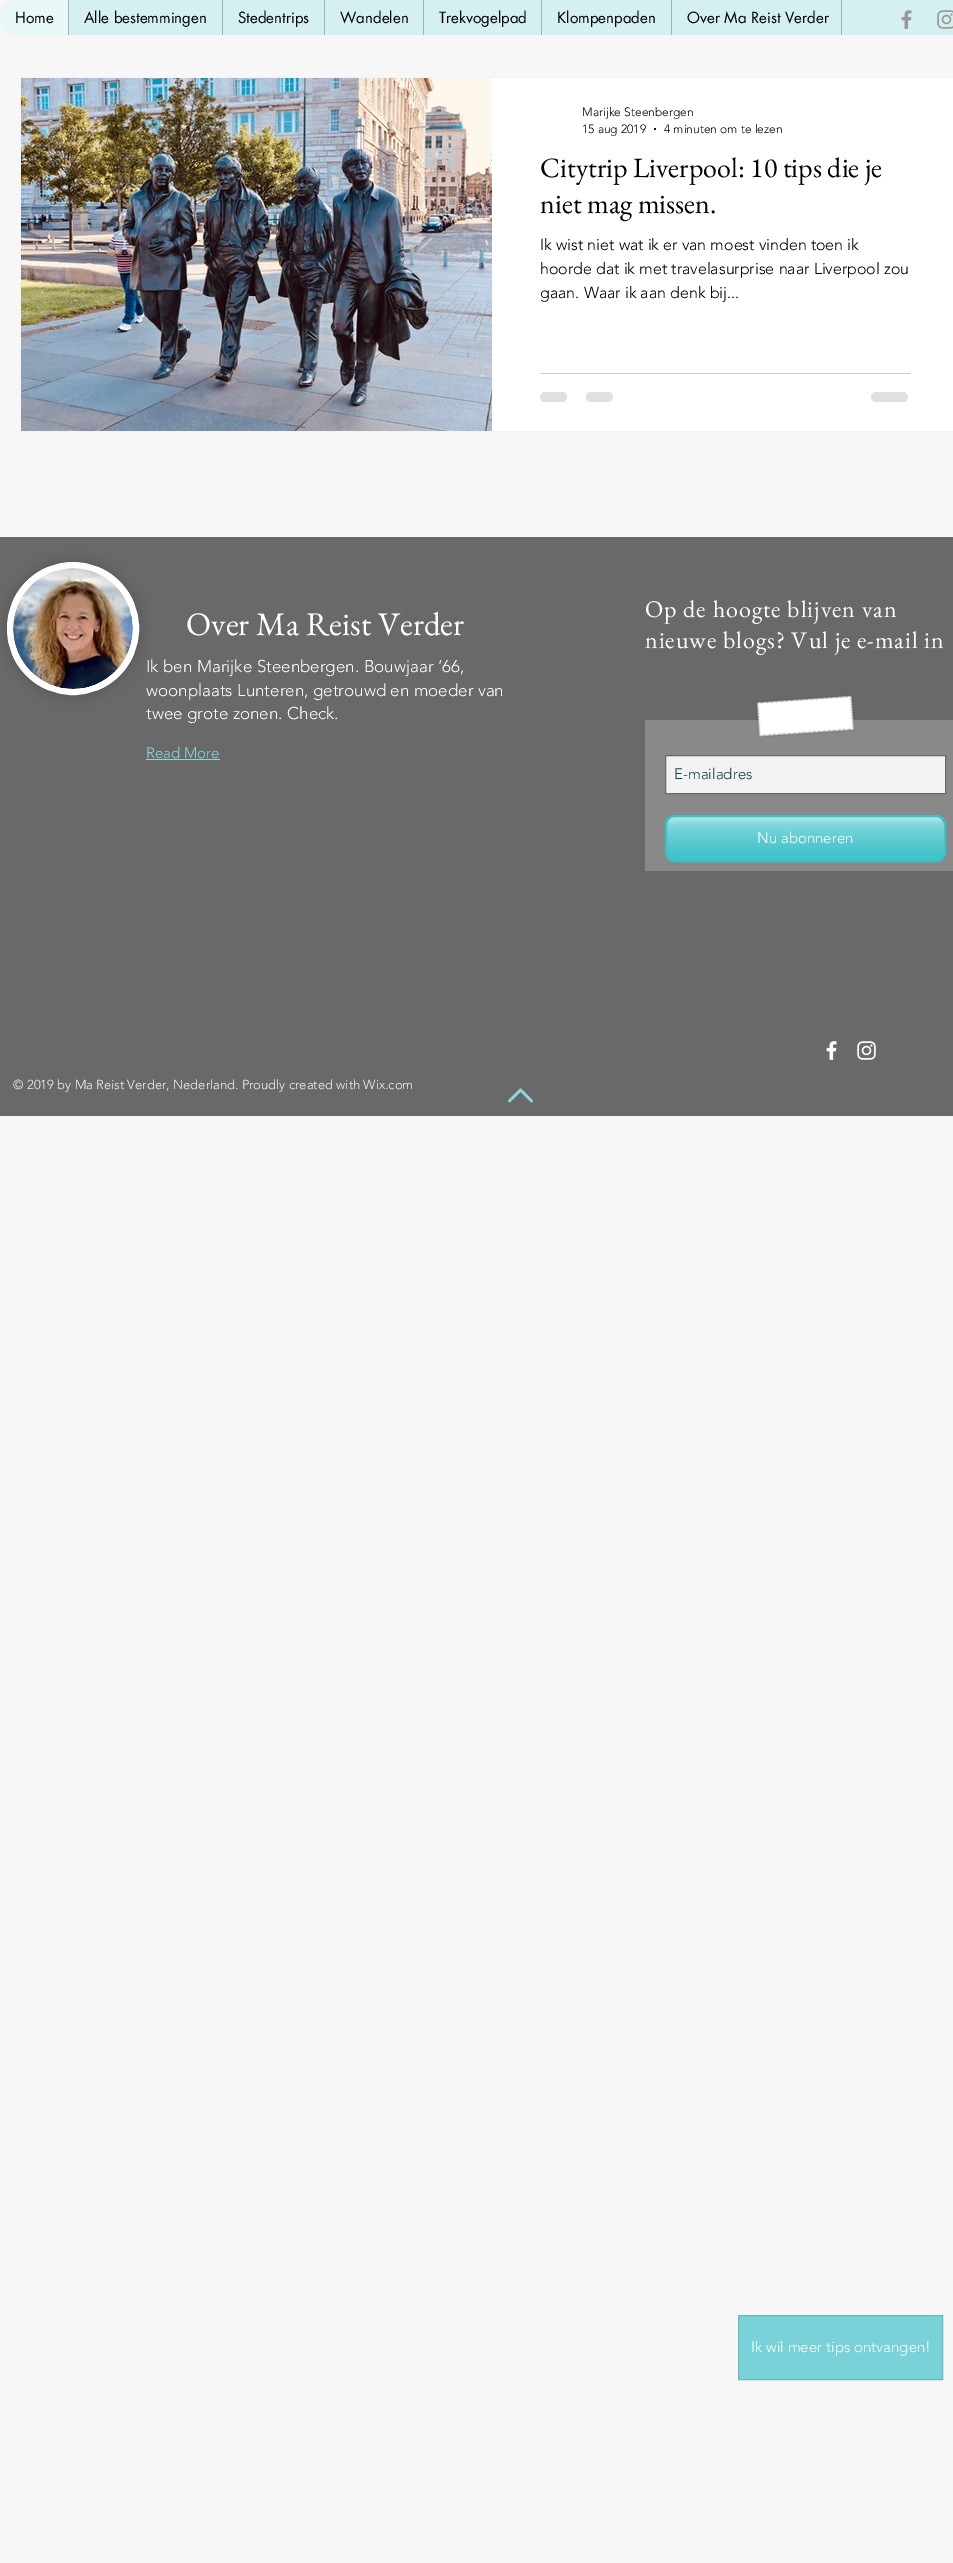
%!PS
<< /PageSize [953 2563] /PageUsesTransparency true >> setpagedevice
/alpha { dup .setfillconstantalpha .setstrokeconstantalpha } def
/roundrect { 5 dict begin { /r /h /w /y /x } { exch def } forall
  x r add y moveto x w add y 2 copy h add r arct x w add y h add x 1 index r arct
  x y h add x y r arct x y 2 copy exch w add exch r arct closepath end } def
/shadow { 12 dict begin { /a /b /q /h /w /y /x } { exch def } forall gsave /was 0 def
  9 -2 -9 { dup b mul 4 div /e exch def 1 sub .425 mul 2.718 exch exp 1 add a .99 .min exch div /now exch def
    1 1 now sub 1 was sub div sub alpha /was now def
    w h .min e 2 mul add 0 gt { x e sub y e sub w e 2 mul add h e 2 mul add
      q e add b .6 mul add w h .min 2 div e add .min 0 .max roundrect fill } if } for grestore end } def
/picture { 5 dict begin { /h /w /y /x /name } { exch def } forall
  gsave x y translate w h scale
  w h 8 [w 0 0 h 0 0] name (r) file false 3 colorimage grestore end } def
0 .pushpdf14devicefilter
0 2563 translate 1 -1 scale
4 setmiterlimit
0.969 setgray
0 0 953 2563 rectfill
0.835 0.941 0.945 setrgbcolor
0 0 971 35 17.5 roundrect fill
0.46 alpha
1 setgray
newpath 17.5 0 moveto 68 0 lineto 68 35 lineto 17.5 35 lineto 8 35 0 27 0 17.5 curveto 0 8 8 0 17.5 0 curveto closepath fill
/futura-Regular [15 0 0 -15 0 0] selectfont
1 alpha
0 setgray
15 23 moveto (Home) show
0.655 0.698 0.698 setrgbcolor
68 0 1 35 rectfill
0 setgray
84 23 moveto (Alle bestemmingen) show
0.655 0.698 0.698 setrgbcolor
222 0 1 35 rectfill
0 setgray
238 23 moveto (Stedentrips) show
0.655 0.698 0.698 setrgbcolor
324 0 1 35 rectfill
0 setgray
340 23 moveto (Wandelen) show
0.655 0.698 0.698 setrgbcolor
423 0 1 35 rectfill
0 setgray
439 23 moveto (Trekvogelpad) show
0.655 0.698 0.698 setrgbcolor
541 0 1 35 rectfill
0 setgray
557 23 moveto (Klompenpaden) show
0.655 0.698 0.698 setrgbcolor
671 0 1 35 rectfill
0 setgray
687 23 moveto (Over Ma Reist Verder) show
0.655 0.698 0.698 setrgbcolor
841 0 1 35 rectfill
(img1.rgb) 901 10 11 19 picture
(img2.rgb) 937 10 16 19 picture
0.953 setgray
20.5 77.5 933 354 rectstroke
(img3.rgb) 21 78 471 353 picture
1 setgray
492 78 461 353 rectfill
/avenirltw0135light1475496-Light [12 0 0 -12 0 0] selectfont
0 setgray
582 116 moveto (Marijke Steenbergen) show
582 133 moveto (15 aug 2019) show
newpath 655 129 1 0 360 arc closepath fill
664 133 moveto (4 minuten om te lezen) show
/EBGaramond-Regular [28 0 0 -28 0 0] selectfont
540 177 moveto (Citytrip Liverpool: 10 tips die je) show
540 213 moveto (niet mag missen.) show
/avenirltw0135light1475496-Light [16 0 0 -16 0 0] selectfont
540 250 moveto (Ik wist niet wat ik er van moest vinden toen ik) show
540 274 moveto (hoorde dat ik met travelasurprise naar Liverpool zou) show
540 298 moveto (gaan. Waar ik aan denk bij...) show
0.8 setgray
540 373 371 1 rectfill
0.878 setgray
540 392 27 10 5 roundrect fill
586 392 27 10 5 roundrect fill
871 392 37 10 5 roundrect fill
0.412 setgray
0 537 953 579 rectfill
0 setgray
7 562 132 133 66 7 0.2 shadow
1 setgray
10 565 126 127 63 roundrect gsave fill grestore
6 setlinewidth
stroke
(img4.rgb) 13 568 120 121 picture
/EBGaramond-Regular [33 0 0 -33 0 0] selectfont
186 635 moveto (Over Ma Reist Verder) show
/EBGaramond-Regular [24 0 0 -24 0 0] selectfont
645 617 moveto 0.95 0 (Op de hoogte blijven van) ashow
645 648 moveto 0.95 0 (nieuwe blogs? Vul je e-mail in) ashow
/avenirltw0135light1475496-Light [17 0 0 -17 0 0] selectfont
146 672 moveto (Ik ben Marijke Steenbergen. Bouwjaar ‘66,) show
146 696 moveto (woonplaats Lunteren, getrouwd en moeder van) show
146 719 moveto (twee grote zonen. Check.) show
/avenirltw0135light1475496-Light [15 0 0 -15 0 0] selectfont
0.553 0.839 0.855 setrgbcolor
146 758 moveto (Read More) show
146 759 74 1 rectfill
0.537 setgray
645 720 308 151 rectfill
(img5.rgb) 756 695 99 42 picture
0.949 setgray
newpath 665.5 755.5 moveto 945.5 755.5 lineto 945.5 793.5 lineto 665.5 793.5 lineto closepath gsave fill grestore
0.412 setgray
1 setlinewidth
stroke
0.075 0.251 0.259 setrgbcolor
674 779 moveto (E-mailadres) show
0.227 0.753 0.78 setrgbcolor
665 815 281 47 10 roundrect fill
(img6.rgb) 665 817 281 45 picture
2 setlinewidth
666 816 279 45 9 roundrect stroke
1 setgray
757 843 moveto (Nu abonneren) show
(img7.rgb) 826 1041 11 19 picture
(img8.rgb) 857 1041 19 19 picture
/avenirltw0135light1475496-Light [13 0 0 -13 0 0] selectfont
0.949 setgray
13 1089 moveto (© 2019 by Ma Reist Verder, Nederland. Proudly created with Wix.com) show
(img9.rgb) 508 1088 25 15 picture
0.471 0.824 0.843 setrgbcolor
newpath 738.5 2315.5 moveto 942.5 2315.5 lineto 942.5 2379.5 lineto 738.5 2379.5 lineto closepath gsave fill grestore
0.416 0.722 0.765 setrgbcolor
1 setlinewidth
stroke
/avenirltw0135light1475496-Light [15 0 0 -15 0 0] selectfont
1 setgray
751 2352 moveto (Ik wil meer tips ontvangen!) show
.poppdf14devicefilter showpage
